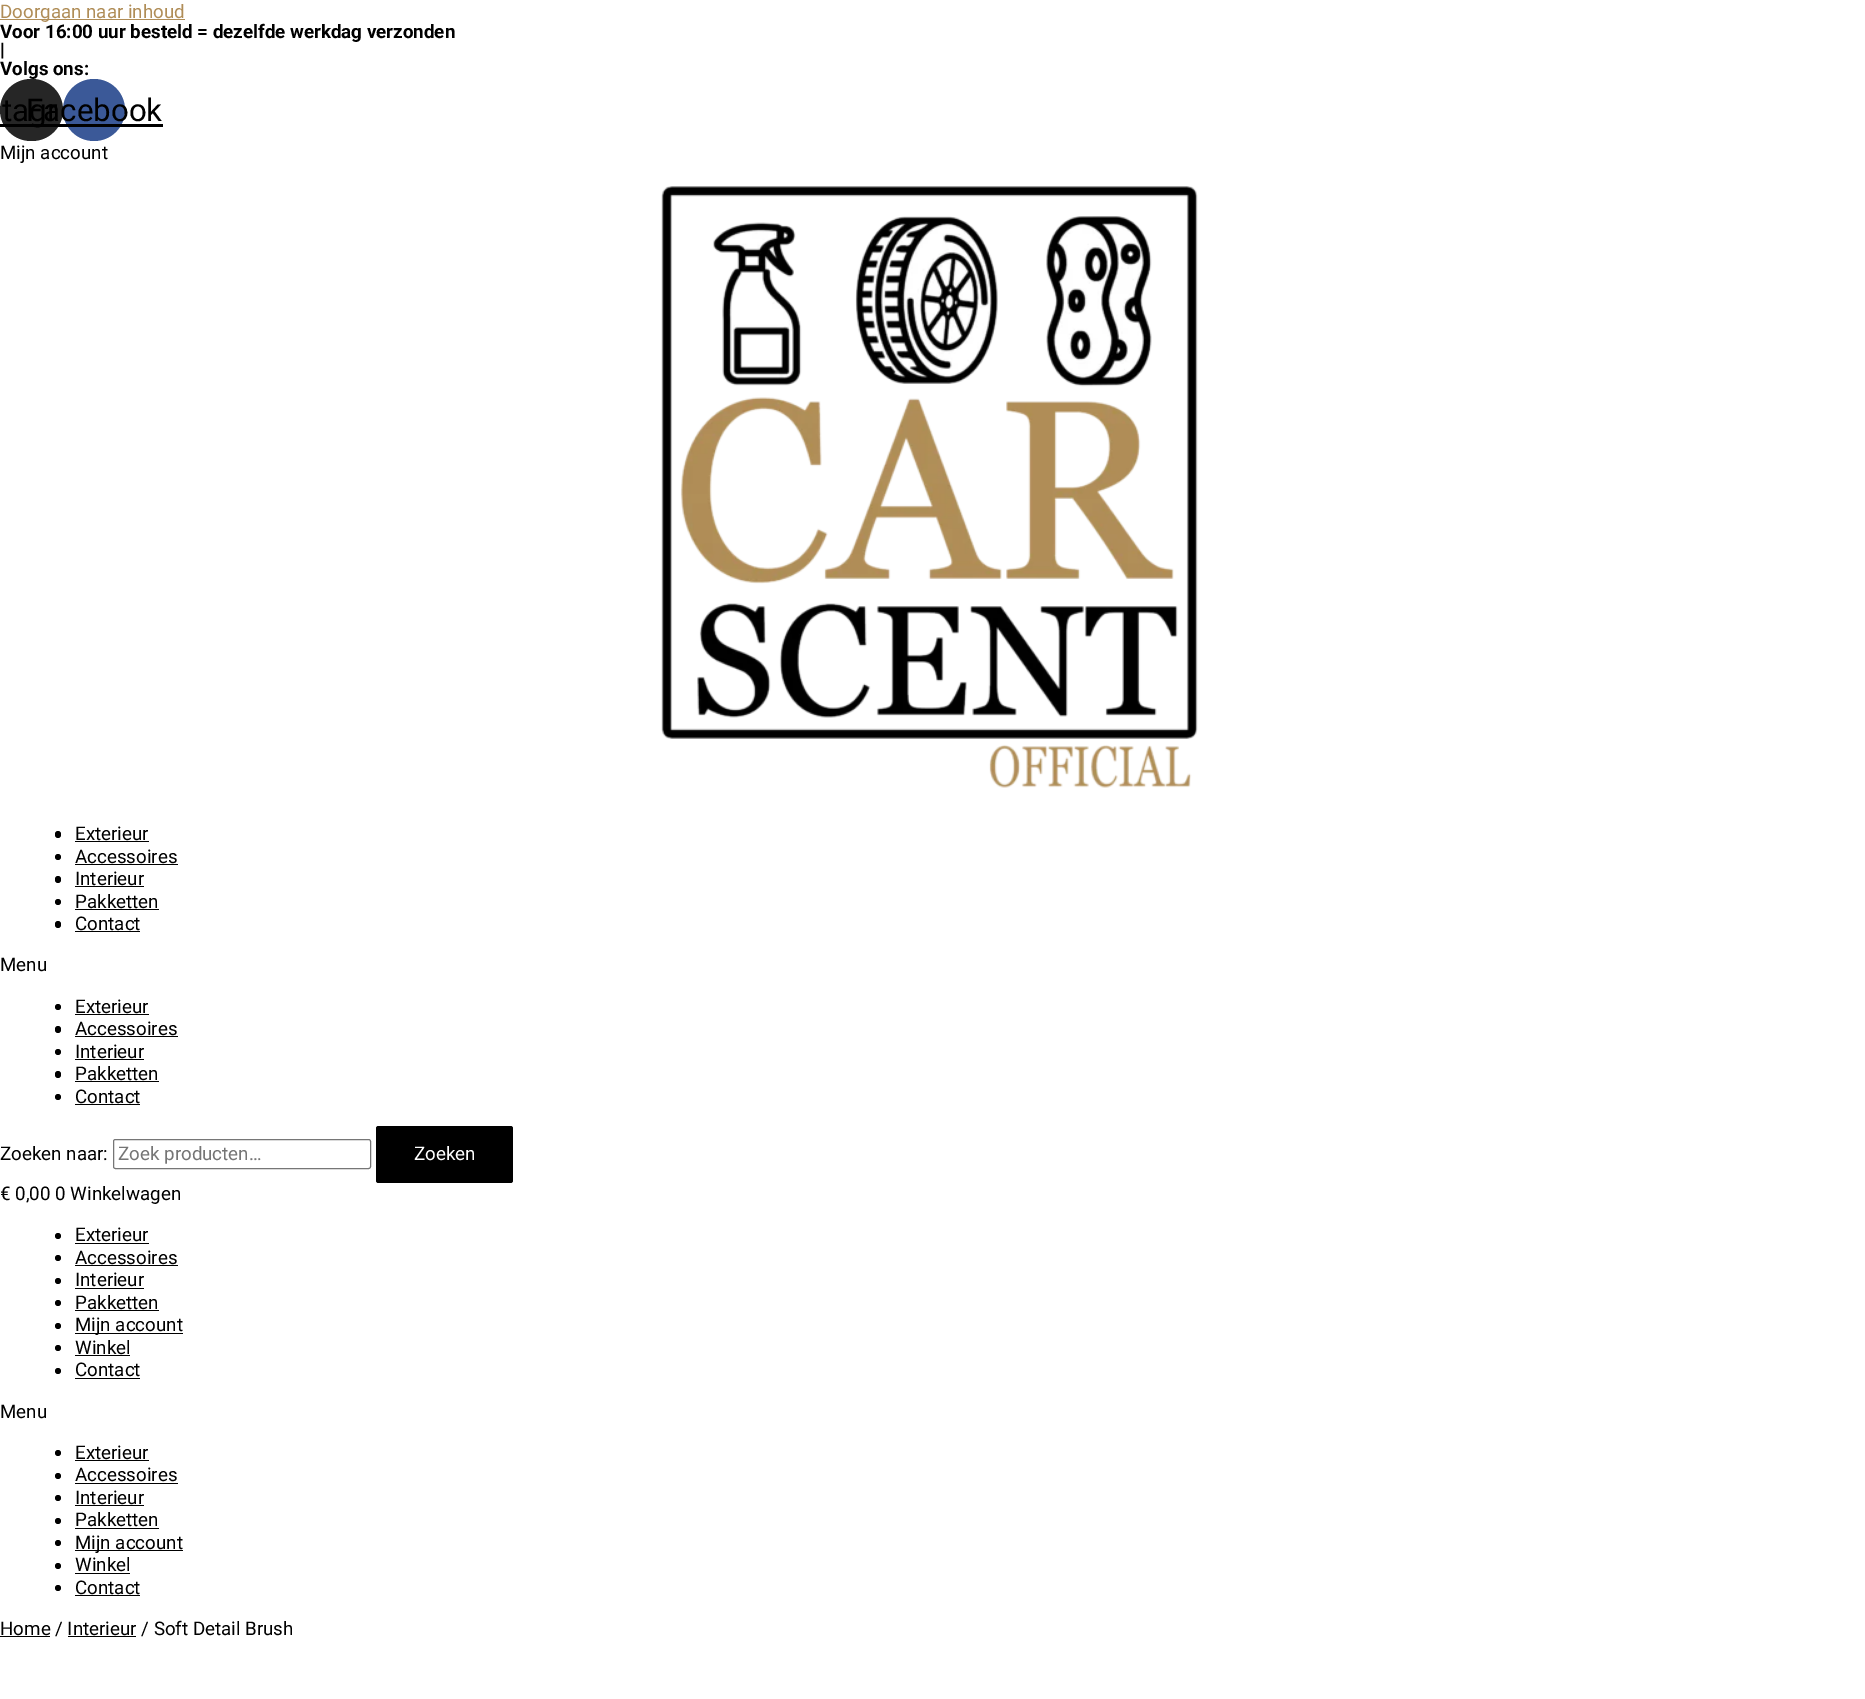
%!PS
<< /PageSize [1865 1699] >> setpagedevice
/roundrect { 5 dict begin { /r /h /w /y /x } { exch def } forall
  x r add y moveto x w add y 2 copy h add r arct x w add y h add x 1 index r arct
  x y h add x y r arct x y 2 copy exch w add exch r arct closepath end } def
/picture { 5 dict begin { /h /w /y /x /name } { exch def } forall
  gsave x y translate w h scale
  w h 8 [w 0 0 h 0 0] name (r) file false 3 colorimage grestore end } def
0 1699 translate 1 -1 scale
4 setmiterlimit
1 setgray
0 0 1865 1699 rectfill
0.69 0.553 0.341 setrgbcolor
0 19 185 1 rectfill
/Roboto-Regular [18.75 0 0 -18.75 0 0] selectfont
0 18 moveto (Doorgaan naar inhoud) show
/Roboto-Bold [18.75 0 0 -18.75 0 0] selectfont
0 setgray
0 38 moveto (Voor 16:00 uur besteld = dezelfde werkdag verzonden) show
0 56 moveto (|) show
0 75 moveto (Volgs ons:) show
0.231 0.349 0.596 setrgbcolor
newpath 94 110 31 0 360 arc closepath fill
0.149 setgray
0 79 63 62 31 roundrect fill
0 setgray
0 124 26 3 rectfill
/Roboto-Regular [31.25 0 0 -31.25 0 0] selectfont
2 121 moveto (tagr) show
26 121 moveto (Facebook) show
26 124 137 3 rectfill
/Roboto-Regular [18.75 0 0 -18.75 0 0] selectfont
0 159 moveto (Mijn account) show
(img1.rgb) 661 186 537 602 picture
55 831 6 7 3 roundrect fill
75 840 moveto (Exterieur) show
75 841 74 1 rectfill
newpath 58 857 3 0 360 arc closepath fill
75 863 moveto (Accessoires) show
75 864 103 1 rectfill
55 876 6 7 3 roundrect fill
75 885 moveto (Interieur) show
75 886 69 1 rectfill
newpath 58 902 3 0 360 arc closepath fill
75 908 moveto (Pakketten) show
75 909 84 1 rectfill
55 921 6 7 3 roundrect fill
75 930 moveto (Contact) show
75 931 65 1 rectfill
0 971 moveto (Menu) show
newpath 58 1007 3 0 360 arc closepath fill
75 1013 moveto (Exterieur) show
75 1014 74 1 rectfill
55 1026 6 7 3 roundrect fill
75 1035 moveto (Accessoires) show
75 1036 103 1 rectfill
newpath 58 1052 3 0 360 arc closepath fill
75 1058 moveto (Interieur) show
75 1059 69 1 rectfill
55 1071 6 7 3 roundrect fill
75 1080 moveto (Pakketten) show
75 1081 84 1 rectfill
newpath 58 1097 3 0 360 arc closepath fill
75 1103 moveto (Contact) show
75 1104 65 1 rectfill
0 1160 moveto (Zoeken naar:) show
0.463 setgray
113.5 1139.5 257 29 2 roundrect stroke
0.459 setgray
118 1160 moveto (Zoek producten…) show
0 setgray
376 1126 137 57 2.5 roundrect fill
1 setgray
414 1160 moveto (Zoeken) show
0 setgray
0 1200 moveto (€ 0,00 0 Winkelwagen) show
newpath 58 1236 3 0 360 arc closepath fill
75 1241 moveto (Exterieur) show
75 1243 74 1 rectfill
newpath 58 1258 3 0 360 arc closepath fill
75 1264 moveto (Accessoires) show
75 1265 103 1 rectfill
newpath 58 1281 3 0 360 arc closepath fill
75 1286 moveto (Interieur) show
75 1288 69 1 rectfill
newpath 58 1303 3 0 360 arc closepath fill
75 1309 moveto (Pakketten) show
75 1310 84 1 rectfill
newpath 58 1326 3 0 360 arc closepath fill
75 1333 108 1 rectfill
75 1331 moveto (Mijn account) show
newpath 58 1348 3 0 360 arc closepath fill
75 1354 moveto (Winkel) show
75 1355 55 1 rectfill
newpath 58 1371 3 0 360 arc closepath fill
75 1376 moveto (Contact) show
75 1378 65 1 rectfill
0 1418 moveto (Menu) show
newpath 58 1453 3 0 360 arc closepath fill
75 1459 moveto (Exterieur) show
75 1460 74 1 rectfill
newpath 58 1476 3 0 360 arc closepath fill
75 1481 moveto (Accessoires) show
75 1483 103 1 rectfill
newpath 58 1498 3 0 360 arc closepath fill
75 1504 moveto (Interieur) show
75 1505 69 1 rectfill
newpath 58 1521 3 0 360 arc closepath fill
75 1526 moveto (Pakketten) show
75 1528 84 1 rectfill
newpath 58 1543 3 0 360 arc closepath fill
75 1550 108 1 rectfill
75 1549 moveto (Mijn account) show
newpath 58 1566 3 0 360 arc closepath fill
75 1571 moveto (Winkel) show
75 1573 55 1 rectfill
newpath 58 1588 3 0 360 arc closepath fill
75 1594 moveto (Contact) show
75 1595 65 1 rectfill
0 1636 50 1 rectfill
0 1635 moveto (Home / Interieur / Soft Detail Brush) show
68 1636 68 1 rectfill
showpage
